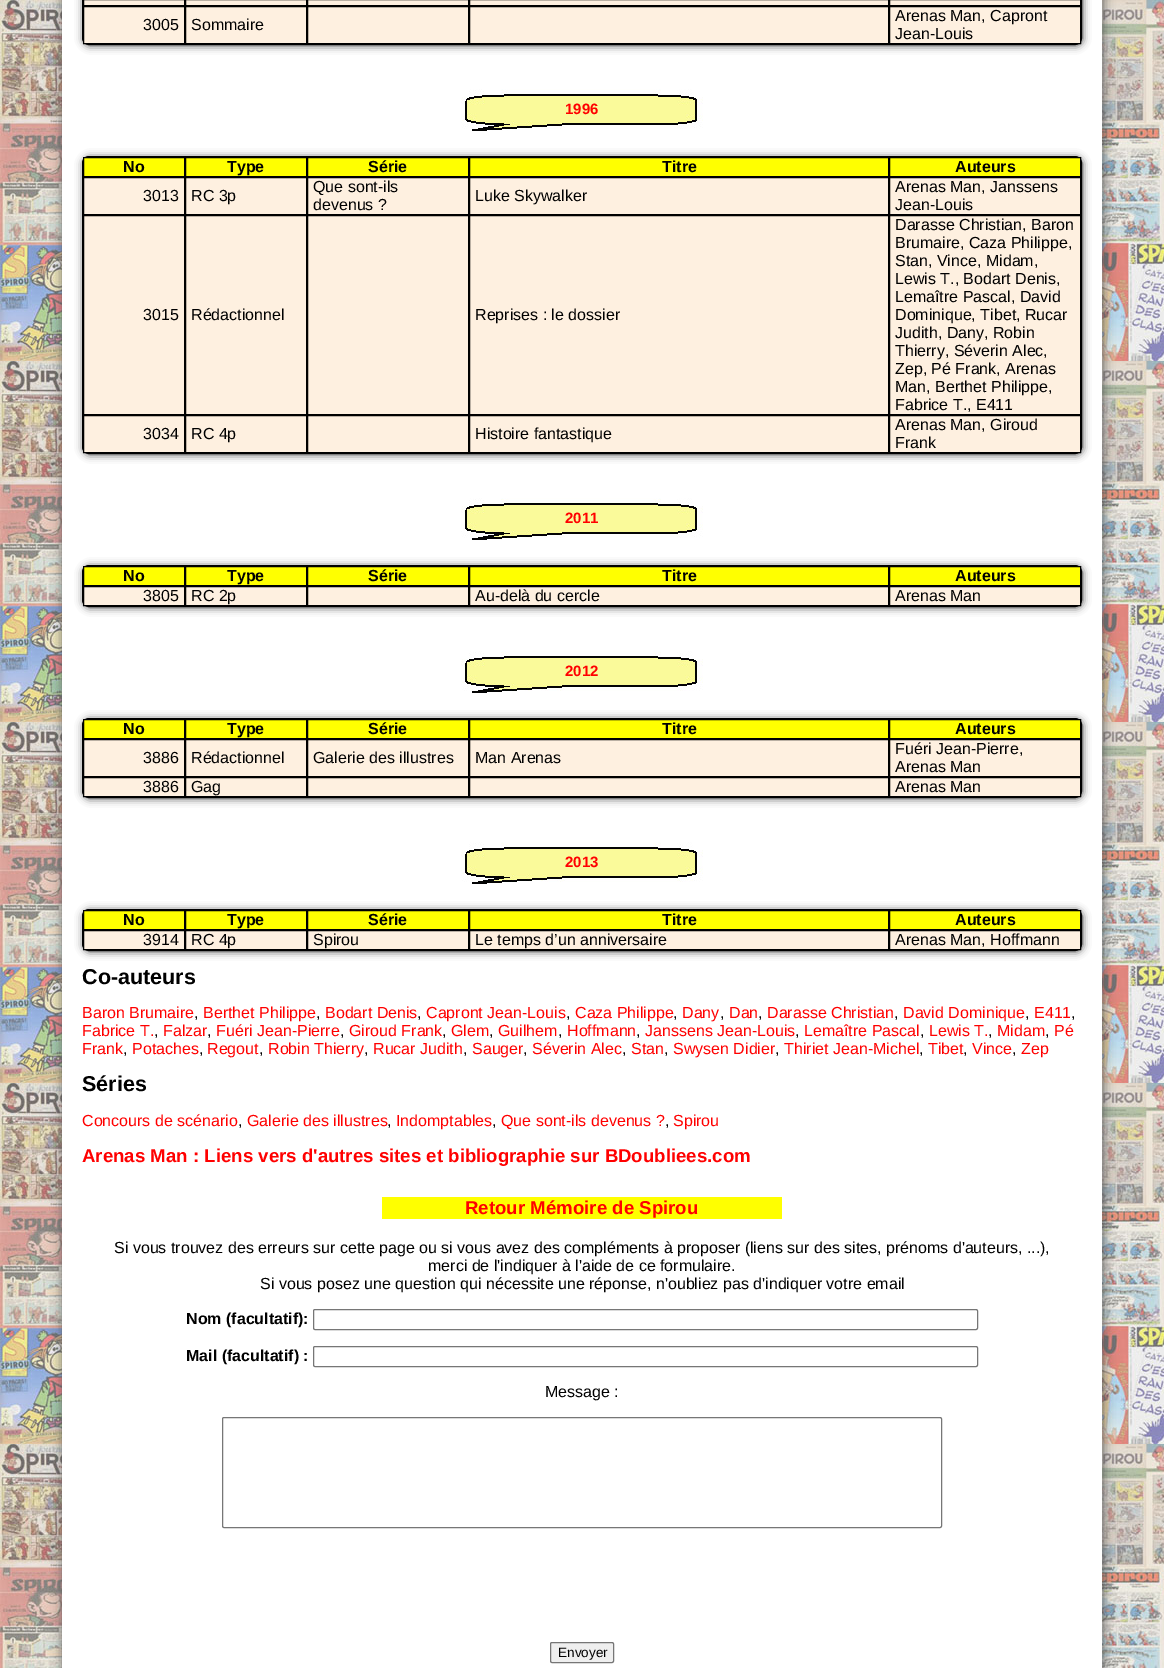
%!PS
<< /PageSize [1164 1668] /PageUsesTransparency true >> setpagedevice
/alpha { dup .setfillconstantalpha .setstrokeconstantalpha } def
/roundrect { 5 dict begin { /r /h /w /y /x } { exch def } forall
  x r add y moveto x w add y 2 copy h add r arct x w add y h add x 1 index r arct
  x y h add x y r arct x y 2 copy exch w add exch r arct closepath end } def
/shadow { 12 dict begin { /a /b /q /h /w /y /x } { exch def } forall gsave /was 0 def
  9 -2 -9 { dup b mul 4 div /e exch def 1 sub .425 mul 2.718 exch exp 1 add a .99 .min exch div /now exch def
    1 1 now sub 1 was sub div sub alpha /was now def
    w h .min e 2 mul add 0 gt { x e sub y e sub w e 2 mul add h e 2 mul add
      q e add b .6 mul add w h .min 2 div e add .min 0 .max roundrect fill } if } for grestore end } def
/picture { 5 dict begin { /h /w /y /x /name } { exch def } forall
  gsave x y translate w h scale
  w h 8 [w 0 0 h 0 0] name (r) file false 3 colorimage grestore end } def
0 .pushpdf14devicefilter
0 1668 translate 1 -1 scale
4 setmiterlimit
1 setgray
0 0 1164 1668 rectfill
(img1.rgb) 0 0 1164 1668 picture
0.333 setgray
63 -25 1040 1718 7 6 1 shadow
1 setgray
62 0 1040 1668 rectfill
0.333 setgray
83 -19 1000 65 7 4 1 shadow
0 setgray
82.5 -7.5 999 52 6.5 roundrect stroke
0.996 0.941 0.878 setrgbcolor
83 0 998 5 rectfill
0 setgray
83.5 -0.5 101 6 rectstroke
185.5 -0.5 121 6 rectstroke
307.5 -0.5 161 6 rectstroke
469.5 -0.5 419 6 rectstroke
889.5 -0.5 191 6 rectstroke
0.996 0.941 0.878 setrgbcolor
84 7 996 36 rectfill
0 setgray
83.5 6.5 101 37 rectstroke
/LiberationSans-Regular [16 0 0 -16 0 0] selectfont
143 30 moveto (3005) show
185.5 6.5 121 37 rectstroke
191 30 moveto (Sommaire) show
307.5 6.5 161 37 rectstroke
469.5 6.5 419 37 rectstroke
889.5 6.5 191 37 rectstroke
895 21 moveto (Arenas Man, Capront) show
895 39 moveto (Jean-Louis) show
(img2.rgb) 461 89 242 42 picture
/LiberationSans-Bold [15 0 0 -15 0 0] selectfont
1 0 0 setrgbcolor
565 114 moveto (1996) show
0.333 setgray
83 157 1000 298 7 4 1 shadow
0 setgray
82.5 156.5 999 297 6.5 roundrect stroke
1 1 0 setrgbcolor
newpath 83.5 157.5 moveto 184.5 157.5 lineto 184.5 176.5 lineto 83.5 176.5 lineto closepath gsave fill grestore
0 setgray
stroke
/LiberationSans-Bold [16 0 0 -16 0 0] selectfont
123 172 moveto (No) show
1 1 0 setrgbcolor
newpath 185.5 157.5 moveto 306.5 157.5 lineto 306.5 176.5 lineto 185.5 176.5 lineto closepath gsave fill grestore
0 setgray
stroke
227 172 moveto (Type) show
1 1 0 setrgbcolor
newpath 307.5 157.5 moveto 468.5 157.5 lineto 468.5 176.5 lineto 307.5 176.5 lineto closepath gsave fill grestore
0 setgray
stroke
368 172 moveto (Série) show
1 1 0 setrgbcolor
newpath 469.5 157.5 moveto 888.5 157.5 lineto 888.5 176.5 lineto 469.5 176.5 lineto closepath gsave fill grestore
0 setgray
stroke
662 172 moveto (Titre) show
1 1 0 setrgbcolor
newpath 889.5 157.5 moveto 1080.5 157.5 lineto 1080.5 176.5 lineto 889.5 176.5 lineto closepath gsave fill grestore
0 setgray
stroke
955 172 moveto (Auteurs) show
0.996 0.941 0.878 setrgbcolor
84 178 996 36 rectfill
0 setgray
83.5 177.5 101 37 rectstroke
/LiberationSans-Regular [16 0 0 -16 0 0] selectfont
143 201 moveto (3013) show
185.5 177.5 121 37 rectstroke
191 201 moveto (RC 3p) show
307.5 177.5 161 37 rectstroke
313 192 moveto (Que sont-ils) show
313 210 moveto (devenus ?) show
469.5 177.5 419 37 rectstroke
475 201 moveto (Luke Skywalker) show
889.5 177.5 191 37 rectstroke
895 192 moveto (Arenas Man, Janssens) show
895 210 moveto (Jean-Louis) show
0.996 0.941 0.878 setrgbcolor
84 216 996 198 rectfill
0 setgray
83.5 215.5 101 199 rectstroke
143 320 moveto (3015) show
185.5 215.5 121 199 rectstroke
191 320 moveto (Rédactionnel) show
307.5 215.5 161 199 rectstroke
469.5 215.5 419 199 rectstroke
475 320 moveto (Reprises : le dossier) show
889.5 215.5 191 199 rectstroke
895 230 moveto (Darasse Christian, Baron) show
895 248 moveto (Brumaire, Caza Philippe,) show
895 266 moveto (Stan, Vince, Midam,) show
895 284 moveto (Lewis T., Bodart Denis,) show
895 302 moveto (Lemaître Pascal, David) show
895 320 moveto (Dominique, Tibet, Rucar) show
895 338 moveto (Judith, Dany, Robin) show
895 356 moveto (Thierry, Séverin Alec,) show
895 374 moveto (Zep, Pé Frank, Arenas) show
895 392 moveto (Man, Berthet Philippe,) show
895 410 moveto (Fabrice T., E411) show
0.996 0.941 0.878 setrgbcolor
84 416 996 36 rectfill
0 setgray
83.5 415.5 101 37 rectstroke
143 439 moveto (3034) show
185.5 415.5 121 37 rectstroke
191 439 moveto (RC 4p) show
307.5 415.5 161 37 rectstroke
469.5 415.5 419 37 rectstroke
475 439 moveto (Histoire fantastique) show
889.5 415.5 191 37 rectstroke
895 430 moveto (Arenas Man, Giroud) show
895 448 moveto (Frank) show
(img2.rgb) 461 498 242 42 picture
/LiberationSans-Bold [15 0 0 -15 0 0] selectfont
1 0 0 setrgbcolor
565 523 moveto (2011) show
0.333 setgray
83 566 1000 42 7 4 1 shadow
0 setgray
82.5 565.5 999 41 6.5 roundrect stroke
1 1 0 setrgbcolor
newpath 83.5 566.5 moveto 184.5 566.5 lineto 184.5 585.5 lineto 83.5 585.5 lineto closepath gsave fill grestore
0 setgray
stroke
/LiberationSans-Bold [16 0 0 -16 0 0] selectfont
123 581 moveto (No) show
1 1 0 setrgbcolor
newpath 185.5 566.5 moveto 306.5 566.5 lineto 306.5 585.5 lineto 185.5 585.5 lineto closepath gsave fill grestore
0 setgray
stroke
227 581 moveto (Type) show
1 1 0 setrgbcolor
newpath 307.5 566.5 moveto 468.5 566.5 lineto 468.5 585.5 lineto 307.5 585.5 lineto closepath gsave fill grestore
0 setgray
stroke
368 581 moveto (Série) show
1 1 0 setrgbcolor
newpath 469.5 566.5 moveto 888.5 566.5 lineto 888.5 585.5 lineto 469.5 585.5 lineto closepath gsave fill grestore
0 setgray
stroke
662 581 moveto (Titre) show
1 1 0 setrgbcolor
newpath 889.5 566.5 moveto 1080.5 566.5 lineto 1080.5 585.5 lineto 889.5 585.5 lineto closepath gsave fill grestore
0 setgray
stroke
955 581 moveto (Auteurs) show
0.996 0.941 0.878 setrgbcolor
84 587 996 18 rectfill
0 setgray
83.5 586.5 101 19 rectstroke
/LiberationSans-Regular [16 0 0 -16 0 0] selectfont
143 601 moveto (3805) show
185.5 586.5 121 19 rectstroke
191 601 moveto (RC 2p) show
307.5 586.5 161 19 rectstroke
469.5 586.5 419 19 rectstroke
475 601 moveto (Au-delà du cercle) show
889.5 586.5 191 19 rectstroke
895 601 moveto (Arenas Man) show
(img2.rgb) 461 651 242 42 picture
/LiberationSans-Bold [15 0 0 -15 0 0] selectfont
1 0 0 setrgbcolor
565 676 moveto (2012) show
0.333 setgray
83 719 1000 80 7 4 1 shadow
0 setgray
82.5 718.5 999 79 6.5 roundrect stroke
1 1 0 setrgbcolor
newpath 83.5 719.5 moveto 184.5 719.5 lineto 184.5 738.5 lineto 83.5 738.5 lineto closepath gsave fill grestore
0 setgray
stroke
/LiberationSans-Bold [16 0 0 -16 0 0] selectfont
123 734 moveto (No) show
1 1 0 setrgbcolor
newpath 185.5 719.5 moveto 306.5 719.5 lineto 306.5 738.5 lineto 185.5 738.5 lineto closepath gsave fill grestore
0 setgray
stroke
227 734 moveto (Type) show
1 1 0 setrgbcolor
newpath 307.5 719.5 moveto 468.5 719.5 lineto 468.5 738.5 lineto 307.5 738.5 lineto closepath gsave fill grestore
0 setgray
stroke
368 734 moveto (Série) show
1 1 0 setrgbcolor
newpath 469.5 719.5 moveto 888.5 719.5 lineto 888.5 738.5 lineto 469.5 738.5 lineto closepath gsave fill grestore
0 setgray
stroke
662 734 moveto (Titre) show
1 1 0 setrgbcolor
newpath 889.5 719.5 moveto 1080.5 719.5 lineto 1080.5 738.5 lineto 889.5 738.5 lineto closepath gsave fill grestore
0 setgray
stroke
955 734 moveto (Auteurs) show
0.996 0.941 0.878 setrgbcolor
84 740 996 36 rectfill
0 setgray
83.5 739.5 101 37 rectstroke
/LiberationSans-Regular [16 0 0 -16 0 0] selectfont
143 763 moveto (3886) show
185.5 739.5 121 37 rectstroke
191 763 moveto (Rédactionnel) show
307.5 739.5 161 37 rectstroke
313 763 moveto (Galerie des illustres) show
469.5 739.5 419 37 rectstroke
475 763 moveto (Man Arenas) show
889.5 739.5 191 37 rectstroke
895 754 moveto (Fuéri Jean-Pierre,) show
895 772 moveto (Arenas Man) show
0.996 0.941 0.878 setrgbcolor
84 778 996 18 rectfill
0 setgray
83.5 777.5 101 19 rectstroke
143 792 moveto (3886) show
185.5 777.5 121 19 rectstroke
191 792 moveto (Gag) show
307.5 777.5 161 19 rectstroke
469.5 777.5 419 19 rectstroke
889.5 777.5 191 19 rectstroke
895 792 moveto (Arenas Man) show
(img2.rgb) 461 842 242 42 picture
/LiberationSans-Bold [15 0 0 -15 0 0] selectfont
1 0 0 setrgbcolor
565 867 moveto (2013) show
0.333 setgray
83 910 1000 42 7 4 1 shadow
0 setgray
82.5 909.5 999 41 6.5 roundrect stroke
1 1 0 setrgbcolor
newpath 83.5 910.5 moveto 184.5 910.5 lineto 184.5 929.5 lineto 83.5 929.5 lineto closepath gsave fill grestore
0 setgray
stroke
/LiberationSans-Bold [16 0 0 -16 0 0] selectfont
123 925 moveto (No) show
1 1 0 setrgbcolor
newpath 185.5 910.5 moveto 306.5 910.5 lineto 306.5 929.5 lineto 185.5 929.5 lineto closepath gsave fill grestore
0 setgray
stroke
227 925 moveto (Type) show
1 1 0 setrgbcolor
newpath 307.5 910.5 moveto 468.5 910.5 lineto 468.5 929.5 lineto 307.5 929.5 lineto closepath gsave fill grestore
0 setgray
stroke
368 925 moveto (Série) show
1 1 0 setrgbcolor
newpath 469.5 910.5 moveto 888.5 910.5 lineto 888.5 929.5 lineto 469.5 929.5 lineto closepath gsave fill grestore
0 setgray
stroke
662 925 moveto (Titre) show
1 1 0 setrgbcolor
newpath 889.5 910.5 moveto 1080.5 910.5 lineto 1080.5 929.5 lineto 889.5 929.5 lineto closepath gsave fill grestore
0 setgray
stroke
955 925 moveto (Auteurs) show
0.996 0.941 0.878 setrgbcolor
84 931 996 18 rectfill
0 setgray
83.5 930.5 101 19 rectstroke
/LiberationSans-Regular [16 0 0 -16 0 0] selectfont
143 945 moveto (3914) show
185.5 930.5 121 19 rectstroke
191 945 moveto (RC 4p) show
307.5 930.5 161 19 rectstroke
313 945 moveto (Spirou) show
469.5 930.5 419 19 rectstroke
475 945 moveto (Le temps d’un anniversaire) show
889.5 930.5 191 19 rectstroke
895 945 moveto (Arenas Man, Hoffmann) show
/LiberationSans-Bold [21.5 0 0 -21.5 0 0] selectfont
82 984 moveto (Co-auteurs) show
/LiberationSans-Regular [16 0 0 -16 0 0] selectfont
1 0 0 setrgbcolor
82 1018 moveto (Baron Brumaire) show
203 1018 moveto (Berthet Philippe) show
325 1018 moveto (Bodart Denis) show
426 1018 moveto (Capront Jean-Louis) show
575 1018 moveto (Caza Philippe) show
682 1018 moveto (Dany) show
729 1018 moveto (Dan) show
767 1018 moveto (Darasse Christian) show
903 1018 moveto (David Dominique) show
1034 1018 moveto (E411) show
0 setgray
194 1018 moveto (,) show
316 1018 moveto (,) show
417 1018 moveto (,) show
566 1018 moveto (,) show
673 1018 moveto (,) show
720 1018 moveto (,) show
758 1018 moveto (,) show
894 1018 moveto (,) show
1025 1018 moveto (,) show
1071 1018 moveto (,) show
1 0 0 setrgbcolor
82 1036 moveto (Fabrice T.) show
0 setgray
154 1036 moveto (,) show
1 0 0 setrgbcolor
163 1036 moveto (Falzar) show
0 setgray
207 1036 moveto (,) show
1 0 0 setrgbcolor
216 1036 moveto (Fuéri Jean-Pierre) show
0 setgray
340 1036 moveto (,) show
1 0 0 setrgbcolor
349 1036 moveto (Giroud Frank) show
0 setgray
442 1036 moveto (,) show
1 0 0 setrgbcolor
451 1036 moveto (Glem) show
0 setgray
489 1036 moveto (,) show
1 0 0 setrgbcolor
498 1036 moveto (Guilhem) show
0 setgray
558 1036 moveto (,) show
1 0 0 setrgbcolor
567 1036 moveto (Hoffmann) show
0 setgray
636 1036 moveto (,) show
1 0 0 setrgbcolor
645 1036 moveto (Janssens Jean-Louis) show
0 setgray
795 1036 moveto (,) show
1 0 0 setrgbcolor
804 1036 moveto (Lemaître Pascal) show
0 setgray
920 1036 moveto (,) show
1 0 0 setrgbcolor
929 1036 moveto (Lewis T.) show
0 setgray
988 1036 moveto (,) show
1 0 0 setrgbcolor
997 1036 moveto (Midam) show
0 setgray
1045 1036 moveto (,) show
1 0 0 setrgbcolor
1054 1036 moveto (Pé) show
82 1054 moveto (Frank) show
0 setgray
123 1054 moveto (,) show
1 0 0 setrgbcolor
132 1054 moveto (Potaches) show
0 setgray
199 1054 moveto (,) show
1 0 0 setrgbcolor
207 1054 moveto (Regout) show
0 setgray
259 1054 moveto (,) show
1 0 0 setrgbcolor
268 1054 moveto (Robin Thierry) show
0 setgray
364 1054 moveto (,) show
1 0 0 setrgbcolor
373 1054 moveto (Rucar Judith) show
0 setgray
463 1054 moveto (,) show
1 0 0 setrgbcolor
472 1054 moveto (Sauger) show
0 setgray
523 1054 moveto (,) show
1 0 0 setrgbcolor
532 1054 moveto (Séverin Alec) show
0 setgray
622 1054 moveto (,) show
1 0 0 setrgbcolor
631 1054 moveto (Stan) show
0 setgray
664 1054 moveto (,) show
1 0 0 setrgbcolor
673 1054 moveto (Swysen Didier) show
0 setgray
775 1054 moveto (,) show
1 0 0 setrgbcolor
784 1054 moveto (Thiriet Jean-Michel) show
0 setgray
919 1054 moveto (,) show
1 0 0 setrgbcolor
928 1054 moveto (Tibet) show
0 setgray
963 1054 moveto (,) show
1 0 0 setrgbcolor
972 1054 moveto (Vince) show
0 setgray
1012 1054 moveto (,) show
1 0 0 setrgbcolor
1021 1054 moveto (Zep) show
/LiberationSans-Bold [21.5 0 0 -21.5 0 0] selectfont
0 setgray
82 1091 moveto (Séries) show
/LiberationSans-Regular [16 0 0 -16 0 0] selectfont
1 0 0 setrgbcolor
82 1126 moveto (Concours de scénario) show
0 setgray
238 1126 moveto (,) show
1 0 0 setrgbcolor
247 1126 moveto (Galerie des illustres) show
0 setgray
387 1126 moveto (,) show
1 0 0 setrgbcolor
396 1126 moveto (Indomptables) show
0 setgray
492 1126 moveto (,) show
1 0 0 setrgbcolor
501 1126 moveto (Que sont-ils devenus ?) show
0 setgray
665 1126 moveto (,) show
1 0 0 setrgbcolor
673 1126 moveto (Spirou) show
/LiberationSans-Bold [18.65 0 0 -18.65 0 0] selectfont
82 1162 moveto (Arenas Man : Liens vers d'autres sites et bibliographie sur BDoubliees.com) show
1 1 0 setrgbcolor
382 1197 400 22 rectfill
1 0 0 setrgbcolor
465 1214 moveto (Retour Mémoire de Spirou) show
/LiberationSans-Regular [16 0 0 -16 0 0] selectfont
0 setgray
114 1253 moveto (Si vous trouvez des erreurs sur cette page ou si vous avez des compléments à proposer \(liens sur des sites, prénoms d'auteurs, ...\),) show
428 1271 moveto (merci de l'indiquer à l'aide de ce formulaire.) show
260 1289 moveto (Si vous posez une question qui nécessite une réponse, n'oubliez pas d'indiquer votre email) show
/LiberationSans-Bold [16 0 0 -16 0 0] selectfont
186 1324 moveto (Nom \(facultatif\):) show
0.463 setgray
313.5 1309.5 664 20 1.5 roundrect stroke
0 setgray
186 1361 moveto (Mail \(facultatif\) :) show
0.463 setgray
313.5 1346.5 664 20 1.5 roundrect stroke
/LiberationSans-Regular [16 0 0 -16 0 0] selectfont
0 setgray
545 1397 moveto (Message :) show
0.463 setgray
222.5 1417.5 719 110 1.5 roundrect stroke
0.937 setgray
550.5 1642.5 63 20 1.5 roundrect gsave fill grestore
0.463 setgray
stroke
/LiberationSans-Regular [13.5 0 0 -13.5 0 0] selectfont
0 setgray
558 1657 moveto (Envoyer) show
.poppdf14devicefilter showpage
